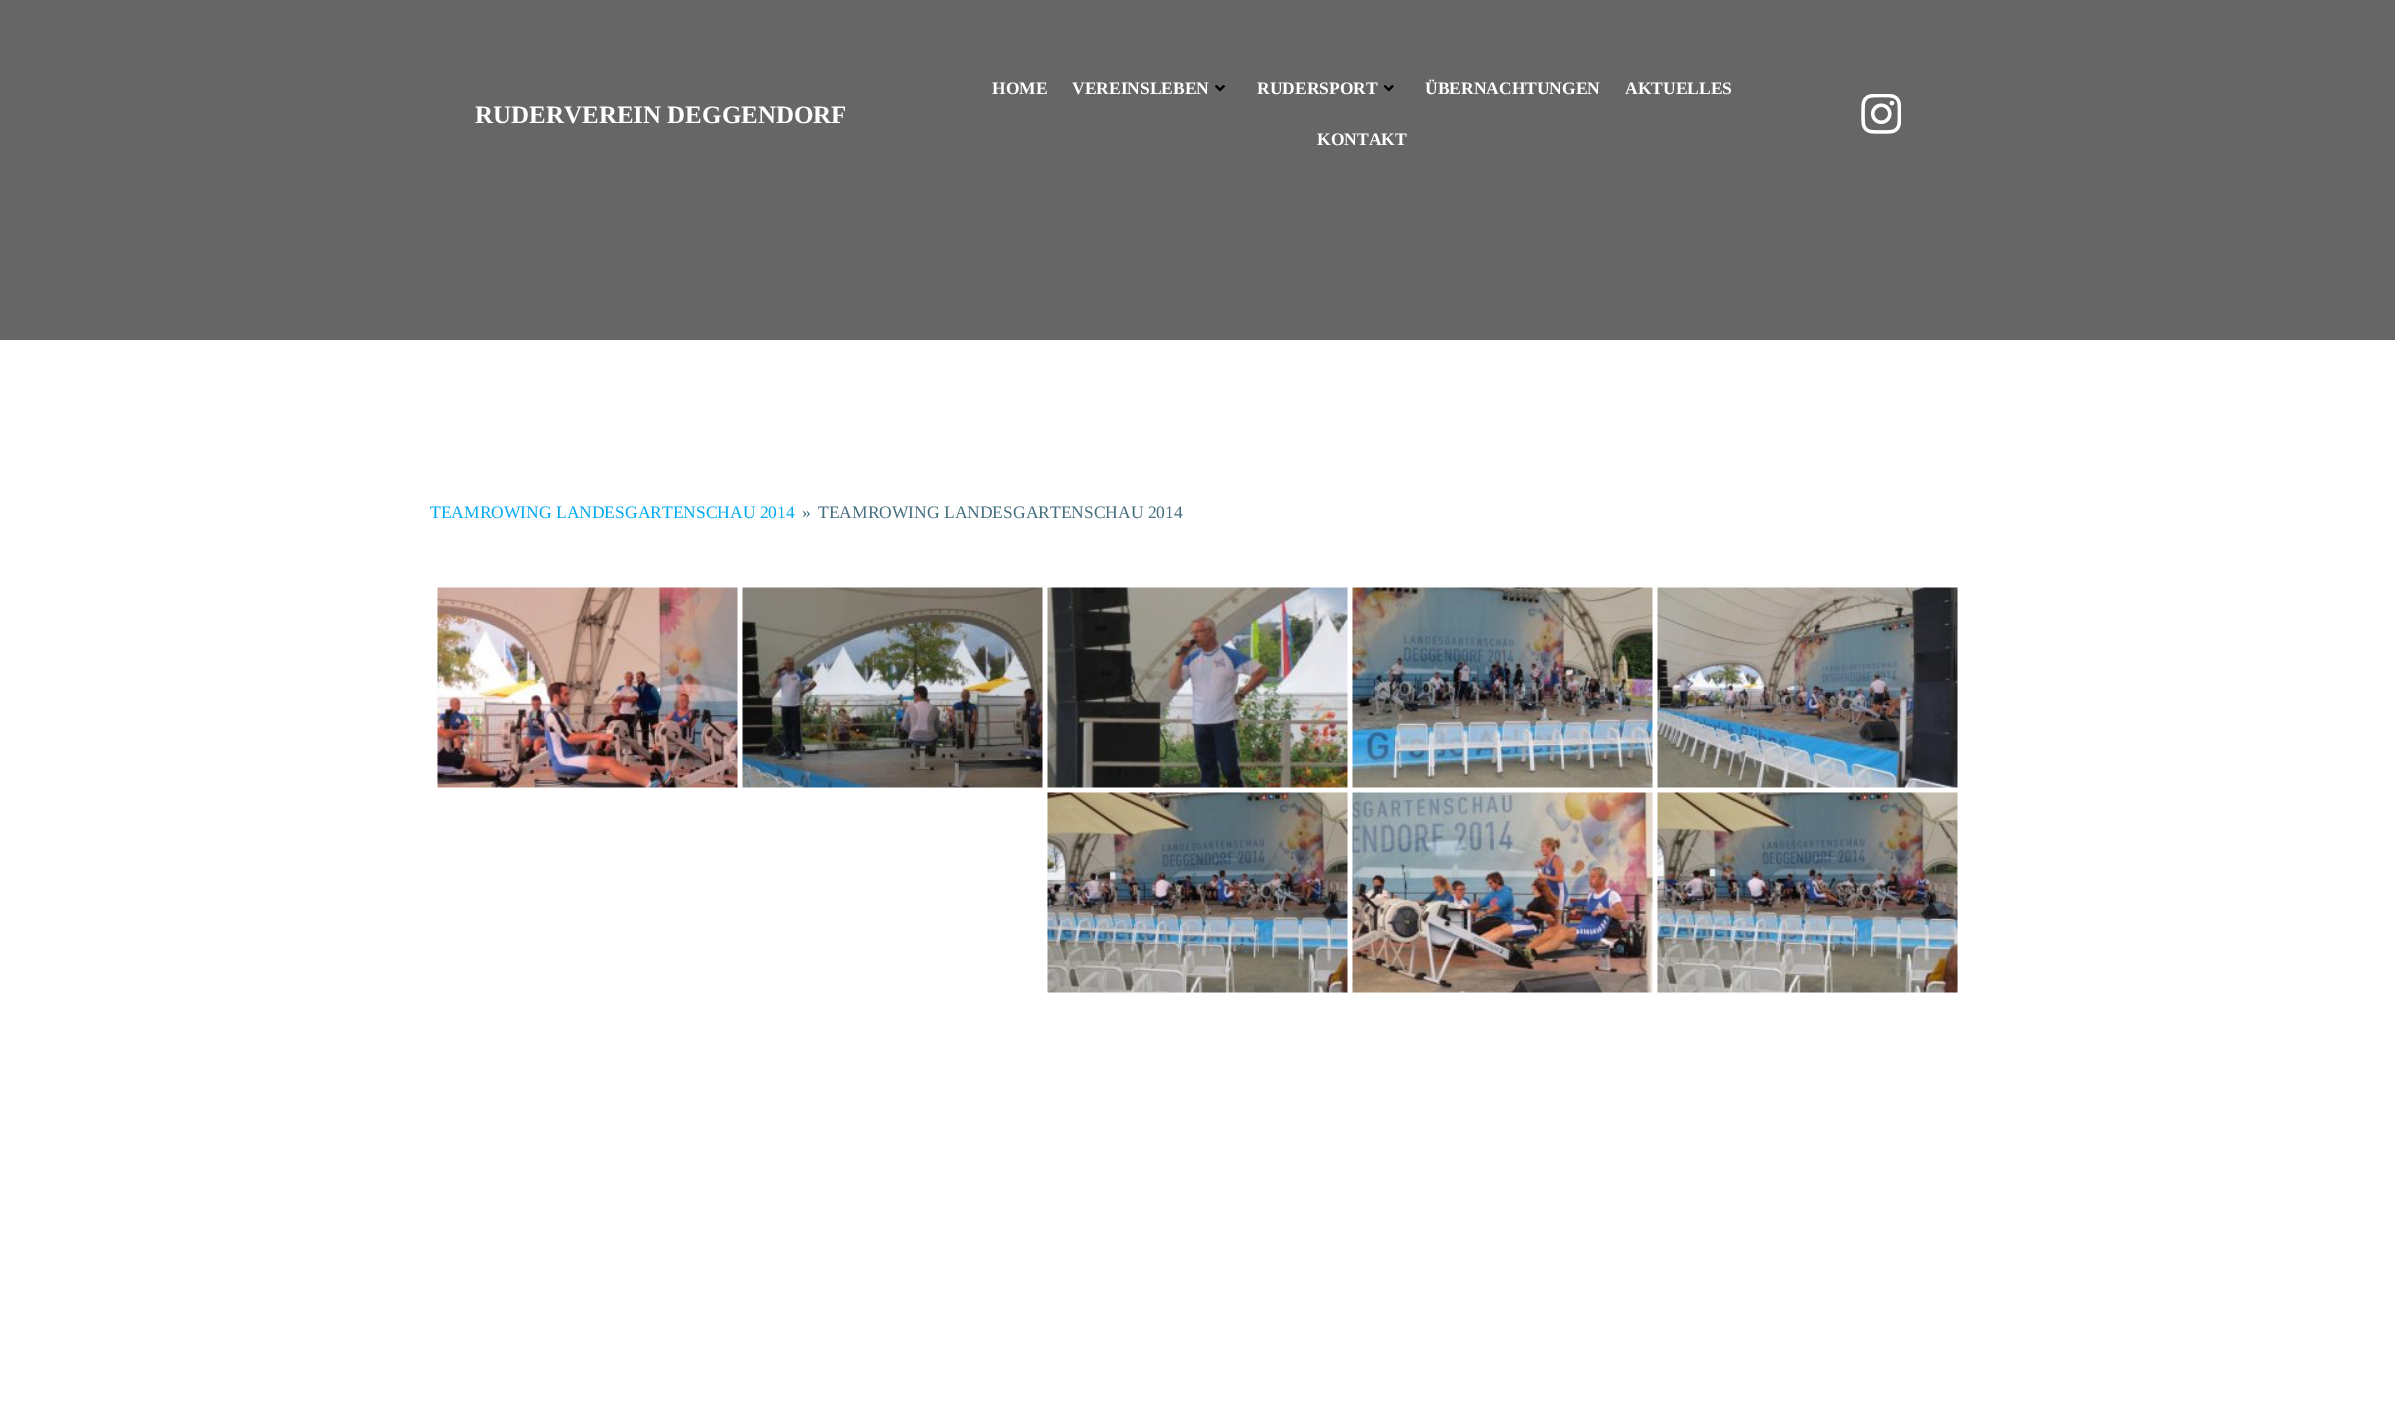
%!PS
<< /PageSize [2395 1413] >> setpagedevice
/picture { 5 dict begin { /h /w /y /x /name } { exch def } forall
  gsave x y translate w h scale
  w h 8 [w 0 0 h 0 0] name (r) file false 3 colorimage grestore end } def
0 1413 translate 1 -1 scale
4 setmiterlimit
1 setgray
0 0 2395 1413 rectfill
0.4 setgray
0 0 2395 340 rectfill
/LiberationSerif-Bold [25 0 0 -25 0 0] selectfont
1 setgray
475 123 moveto (RUDERVEREIN DEGGENDORF) show
/LiberationSerif-Bold [17.5 0 0 -17.5 0 0] selectfont
992 94 moveto (HOME) show
1072 94 moveto (VEREINSLEBEN) show
(img1.rgb) 1215 85 10 7 picture
1257 94 moveto (RUDERSPORT) show
(img2.rgb) 1383 85 11 7 picture
1425 94 moveto (ÜBERNACHTUNGEN) show
1625 94 moveto (AKTUELLES) show
1317 145 moveto (KONTAKT) show
(img3.rgb) 1861 94 40 40 picture
/LiberationSerif-Regular [17.5 0 0 -17.5 0 0] selectfont
0.012 0.663 0.957 setrgbcolor
430 518 moveto (TEAMROWING LANDESGARTENSCHAU 2014) show
0.275 0.439 0.498 setrgbcolor
802 518 moveto (») show
818 518 moveto (TEAMROWING LANDESGARTENSCHAU 2014) show
(img4.rgb) 437 587 301 201 picture
(img5.rgb) 742 587 301 201 picture
(img6.rgb) 1047 587 301 201 picture
(img7.rgb) 1352 587 301 201 picture
(img8.rgb) 1657 587 301 201 picture
(img9.rgb) 1047 792 301 201 picture
(img10.rgb) 1352 792 301 201 picture
(img11.rgb) 1657 792 301 201 picture
showpage
